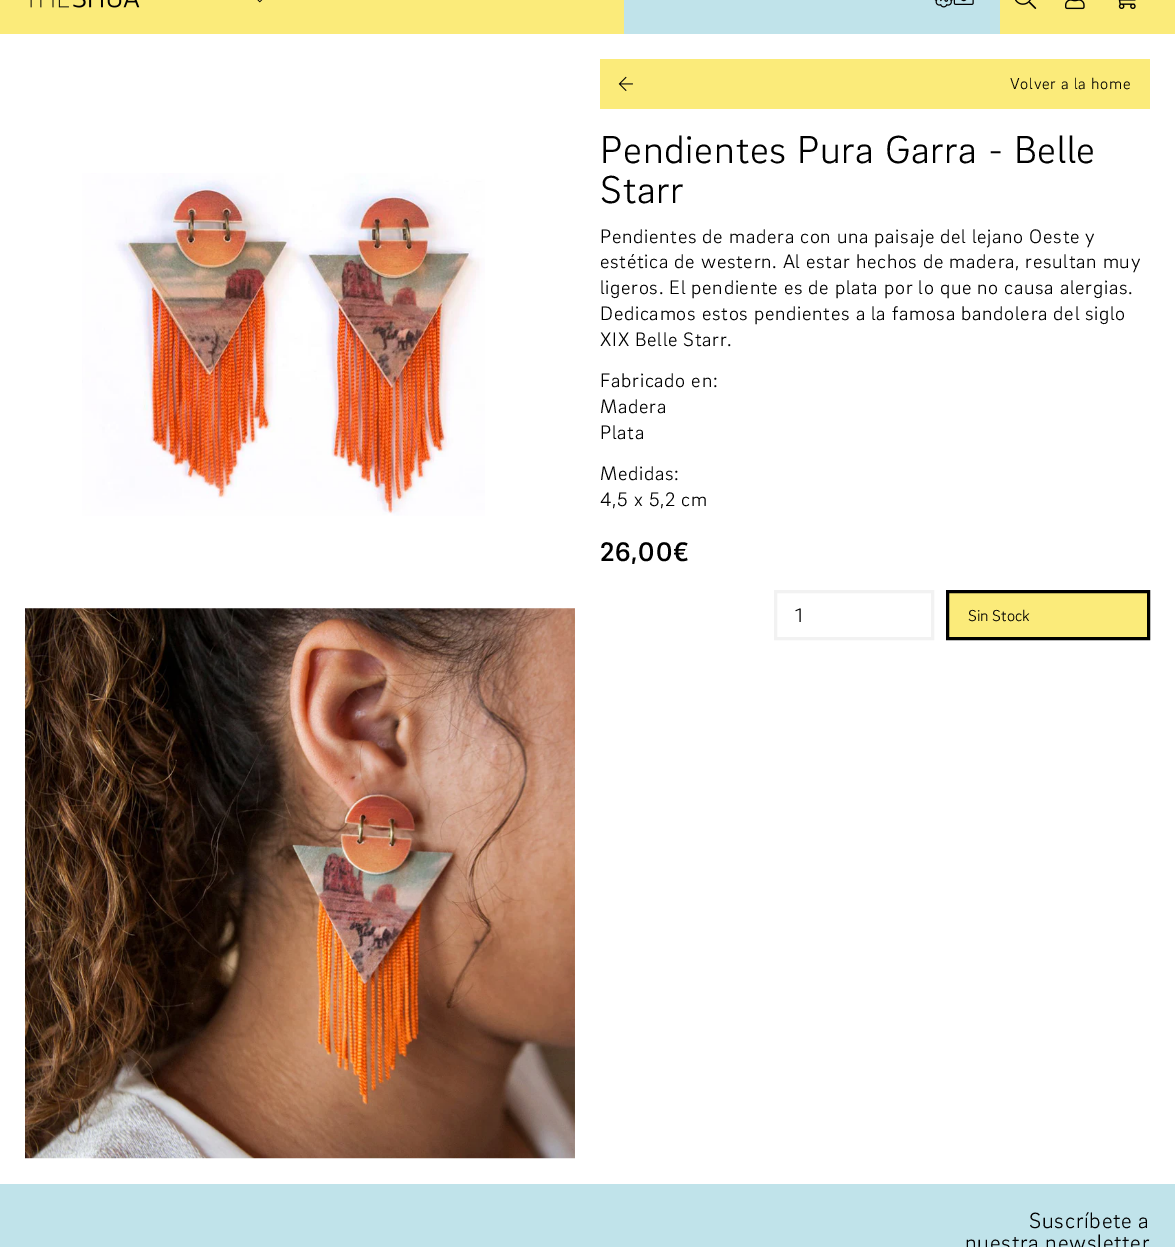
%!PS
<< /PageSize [1175 1247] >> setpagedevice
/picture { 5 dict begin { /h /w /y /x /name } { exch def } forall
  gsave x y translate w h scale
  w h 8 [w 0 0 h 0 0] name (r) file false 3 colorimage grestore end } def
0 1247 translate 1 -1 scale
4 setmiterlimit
1 setgray
0 0 1175 1247 rectfill
0.984 0.922 0.478 setrgbcolor
0 0 1175 34 rectfill
(img1.rgb) 30 0 110 8 picture
(img2.rgb) 257 0 6 3 picture
0.753 0.89 0.918 setrgbcolor
624 0 376 34 rectfill
(img3.rgb) 934 0 19 8 picture
(img4.rgb) 953 0 21 5 picture
(img5.rgb) 1015 0 22 9 picture
(img6.rgb) 1065 0 20 10 picture
(img7.rgb) 1118 0 18 9 picture
(img8.rgb) 82 173 403 343 picture
(img9.rgb) 25 608 550 551 picture
0.984 0.922 0.478 setrgbcolor
600 59 550 50 rectfill
(img10.rgb) 618 76 15 15 picture
/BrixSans-Light [16.25 0 0 -16.25 0 0] selectfont
0 setgray
1010 89 moveto 0.75 0 (Volver a la home) ashow
/BrixSans-Light [40 0 0 -40 0 0] selectfont
600 163 moveto 0.75 0 (Pendientes Pura Garra - Belle) ashow
600 203 moveto 0.75 0 (Starr) ashow
/BrixSans-Light [20 0 0 -20 0 0] selectfont
600 243 moveto 0.75 0 (Pendientes de madera con una paisaje del lejano Oeste y) ashow
600 268 moveto 0.75 0 (estética de western. Al estar hechos de madera, resultan muy) ashow
600 294 moveto 0.75 0 (ligeros. El pendiente es de plata por lo que no causa alergias.) ashow
600 320 moveto 0.75 0 (Dedicamos estos pendientes a la famosa bandolera del siglo) ashow
600 346 moveto 0.75 0 (XIX Belle Starr.) ashow
600 387 moveto 0.75 0 (Fabricado en:) ashow
600 413 moveto 0.75 0 (Madera) ashow
600 439 moveto 0.75 0 (Plata) ashow
600 480 moveto 0.75 0 (Medidas:) ashow
600 506 moveto 0.75 0 (4,5 x 5,2 cm) ashow
/BrixSans-Medium [27.5 0 0 -27.5 0 0] selectfont
600 561 moveto 0.75 0 (26,00€) ashow
0.949 setgray
3 setlinewidth
775.5 591.5 157 47 rectstroke
/BrixSans-Light [20 0 0 -20 0 0] selectfont
0 setgray
795 622 moveto (1) show
0.984 0.922 0.478 setrgbcolor
newpath 947.5 591.5 moveto 1148.5 591.5 lineto 1148.5 638.5 lineto 947.5 638.5 lineto closepath gsave fill grestore
0 setgray
stroke
/BrixSans-Light [16.25 0 0 -16.25 0 0] selectfont
968 621 moveto (Sin Stock) show
0.753 0.89 0.918 setrgbcolor
0 1184 1175 63 rectfill
/BrixSans-Light [22.5 0 0 -22.5 0 0] selectfont
0 setgray
1029 1228 moveto 0.75 0 (Suscríbete a) ashow
965 1250 moveto 0.75 0 (nuestra newsletter) ashow
showpage
